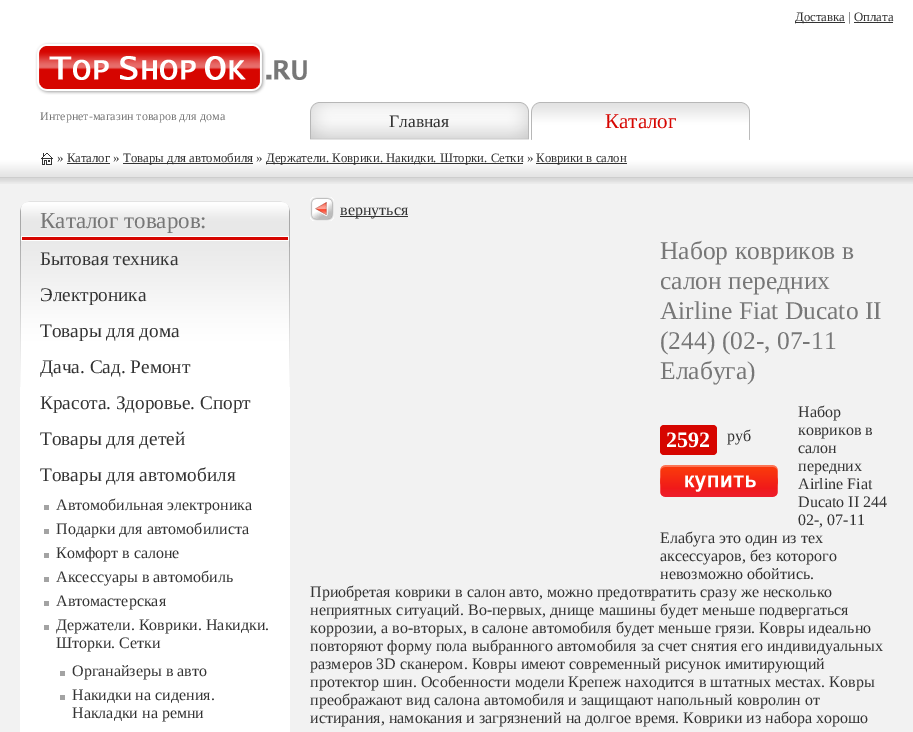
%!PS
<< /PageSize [913 732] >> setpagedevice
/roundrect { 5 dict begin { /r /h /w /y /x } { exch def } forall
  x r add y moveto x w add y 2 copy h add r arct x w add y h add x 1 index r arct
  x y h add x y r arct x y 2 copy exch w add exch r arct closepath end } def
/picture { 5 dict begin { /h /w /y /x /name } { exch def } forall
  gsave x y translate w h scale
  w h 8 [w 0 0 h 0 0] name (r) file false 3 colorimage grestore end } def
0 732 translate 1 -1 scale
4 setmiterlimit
0.949 setgray
0 0 913 732 rectfill
1 setgray
0 0 913 140 rectfill
0.2 setgray
795 22 50 1 rectfill
/LiberationSerif-Regular [12.8 0 0 -12.8 0 0] selectfont
795 21 moveto (Доставка | Оплата) show
854 22 39 1 rectfill
(img1.rgb) 35 42 272 53 picture
/LiberationSerif-Regular [12 0 0 -12 0 0] selectfont
0.467 setgray
40 120 moveto (Интернет-магазин товаров для дома) show
(img2.rgb) 310 102 219 38 picture
/LiberationSerif-Regular [17.5 0 0 -17.5 0 0] selectfont
0.2 setgray
389 127 moveto (Главная) show
(img3.rgb) 531 102 219 38 picture
/LiberationSerif-Regular [21 0 0 -21 0 0] selectfont
0.839 0.02 0 setrgbcolor
605 128 moveto (Каталог) show
(img4.rgb) 0 140 913 44 picture
(img5.rgb) 41 153 12 12 picture
/LiberationSerif-Regular [12.8 0 0 -12.8 0 0] selectfont
0.2 setgray
57 162 moveto (» Каталог ») show
123 163 130 1 rectfill
123 162 moveto (Товары для автомобиля ») show
266 163 257 1 rectfill
266 162 moveto (Держатели. Коврики. Накидки. Шторки. Сетки ») show
536 163 91 1 rectfill
536 162 moveto (Коврики в салон) show
67 163 43 1 rectfill
1 setgray
newpath 30 201 moveto 280 201 lineto 285.5 201 290 205.5 290 211 curveto 290 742 lineto 20 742 lineto 20 211 lineto 20 205.5 24.5 201 30 201 curveto closepath fill
(img6.rgb) 20 201 270 186 picture
/LiberationSerif-Regular [23 0 0 -23 0 0] selectfont
0.467 setgray
40 228 moveto (Каталог товаров:) show
/LiberationSerif-Regular [19.25 0 0 -19.25 0 0] selectfont
0.2 setgray
40 265 moveto (Бытовая техника) show
40 301 moveto (Электроника) show
40 337 moveto (Товары для дома) show
40 373 moveto (Дача. Сад. Ремонт) show
40 409 moveto (Красота. Здоровье. Спорт) show
40 445 moveto (Товары для детей) show
40 481 moveto (Товары для автомобиля) show
0.639 setgray
44 505 5 5 rectfill
/LiberationSerif-Regular [16 0 0 -16 0 0] selectfont
0.2 setgray
56 510 moveto (Автомобильная электроника) show
0.639 setgray
44 529 5 5 rectfill
0.2 setgray
56 534 moveto (Подарки для автомобилиста) show
0.639 setgray
44 553 5 5 rectfill
0.2 setgray
56 558 moveto (Комфорт в салоне) show
0.639 setgray
44 577 5 5 rectfill
0.2 setgray
56 582 moveto (Аксессуары в автомобиль) show
0.639 setgray
44 601 5 5 rectfill
0.2 setgray
56 606 moveto (Автомастерская) show
0.639 setgray
44 625 5 5 rectfill
0.2 setgray
56 630 moveto (Держатели. Коврики. Накидки.) show
56 648 moveto (Шторки. Сетки) show
0.639 setgray
60 671 5 5 rectfill
0.2 setgray
72 676 moveto (Органайзеры в авто) show
0.639 setgray
60 695 5 5 rectfill
0.2 setgray
72 700 moveto (Накидки на сидения.) show
72 718 moveto (Накладки на ремни) show
(img7.rgb) 310 197 24 24 picture
340 216 68 1 rectfill
340 215 moveto (вернуться) show
/LiberationSerif-Regular [25.5 0 0 -25.5 0 0] selectfont
0.467 setgray
660 259 moveto (Набор ковриков в) show
660 289 moveto (салон передних) show
660 319 moveto (Airline Fiat Ducato II) show
660 349 moveto (\(244\) \(02-, 07-11) show
660 379 moveto (Елабуга\)) show
/LiberationSerif-Regular [16 0 0 -16 0 0] selectfont
0.2 setgray
798 417 moveto (Набор) show
0.839 0.02 0 setrgbcolor
660 425 57 30 4 roundrect fill
/LiberationSerif-Bold [22 0 0 -22 0 0] selectfont
1 setgray
666 447 moveto (2592) show
/LiberationSerif-Regular [16 0 0 -16 0 0] selectfont
0.2 setgray
727 441 moveto (руб) show
(img8.rgb) 660 465 118 32 picture
798 435 moveto (ковриков в) show
798 453 moveto (салон) show
798 471 moveto (передних) show
798 489 moveto (Airline Fiat) show
798 507 moveto (Ducato II 244) show
798 525 moveto (02-, 07-11) show
660 543 moveto (Елабуга это один из тех) show
660 561 moveto (аксессуаров, без которого) show
660 579 moveto (невозможно обойтись.) show
310 597 moveto (Приобретая коврики в салон авто, можно предотвратить сразу же несколько) show
310 615 moveto (неприятных ситуаций. Во-первых, днище машины будет меньше подвергаться) show
310 633 moveto (коррозии, а во-вторых, в салоне автомобиля будет меньше грязи. Ковры идеально) show
310 651 moveto (повторяют форму пола выбранного автомобиля за счет снятия его индивидуальных) show
310 669 moveto (размеров 3D сканером. Ковры имеют современный рисунок имитирующий) show
310 687 moveto (протектор шин. Особенности модели Крепеж находится в штатных местах. Ковры) show
310 705 moveto (преображают вид салона автомобиля и защищают напольный ковролин от) show
310 723 moveto (истирания, намокания и загрязнений на долгое время. Коврики из набора хорошо) show
showpage
